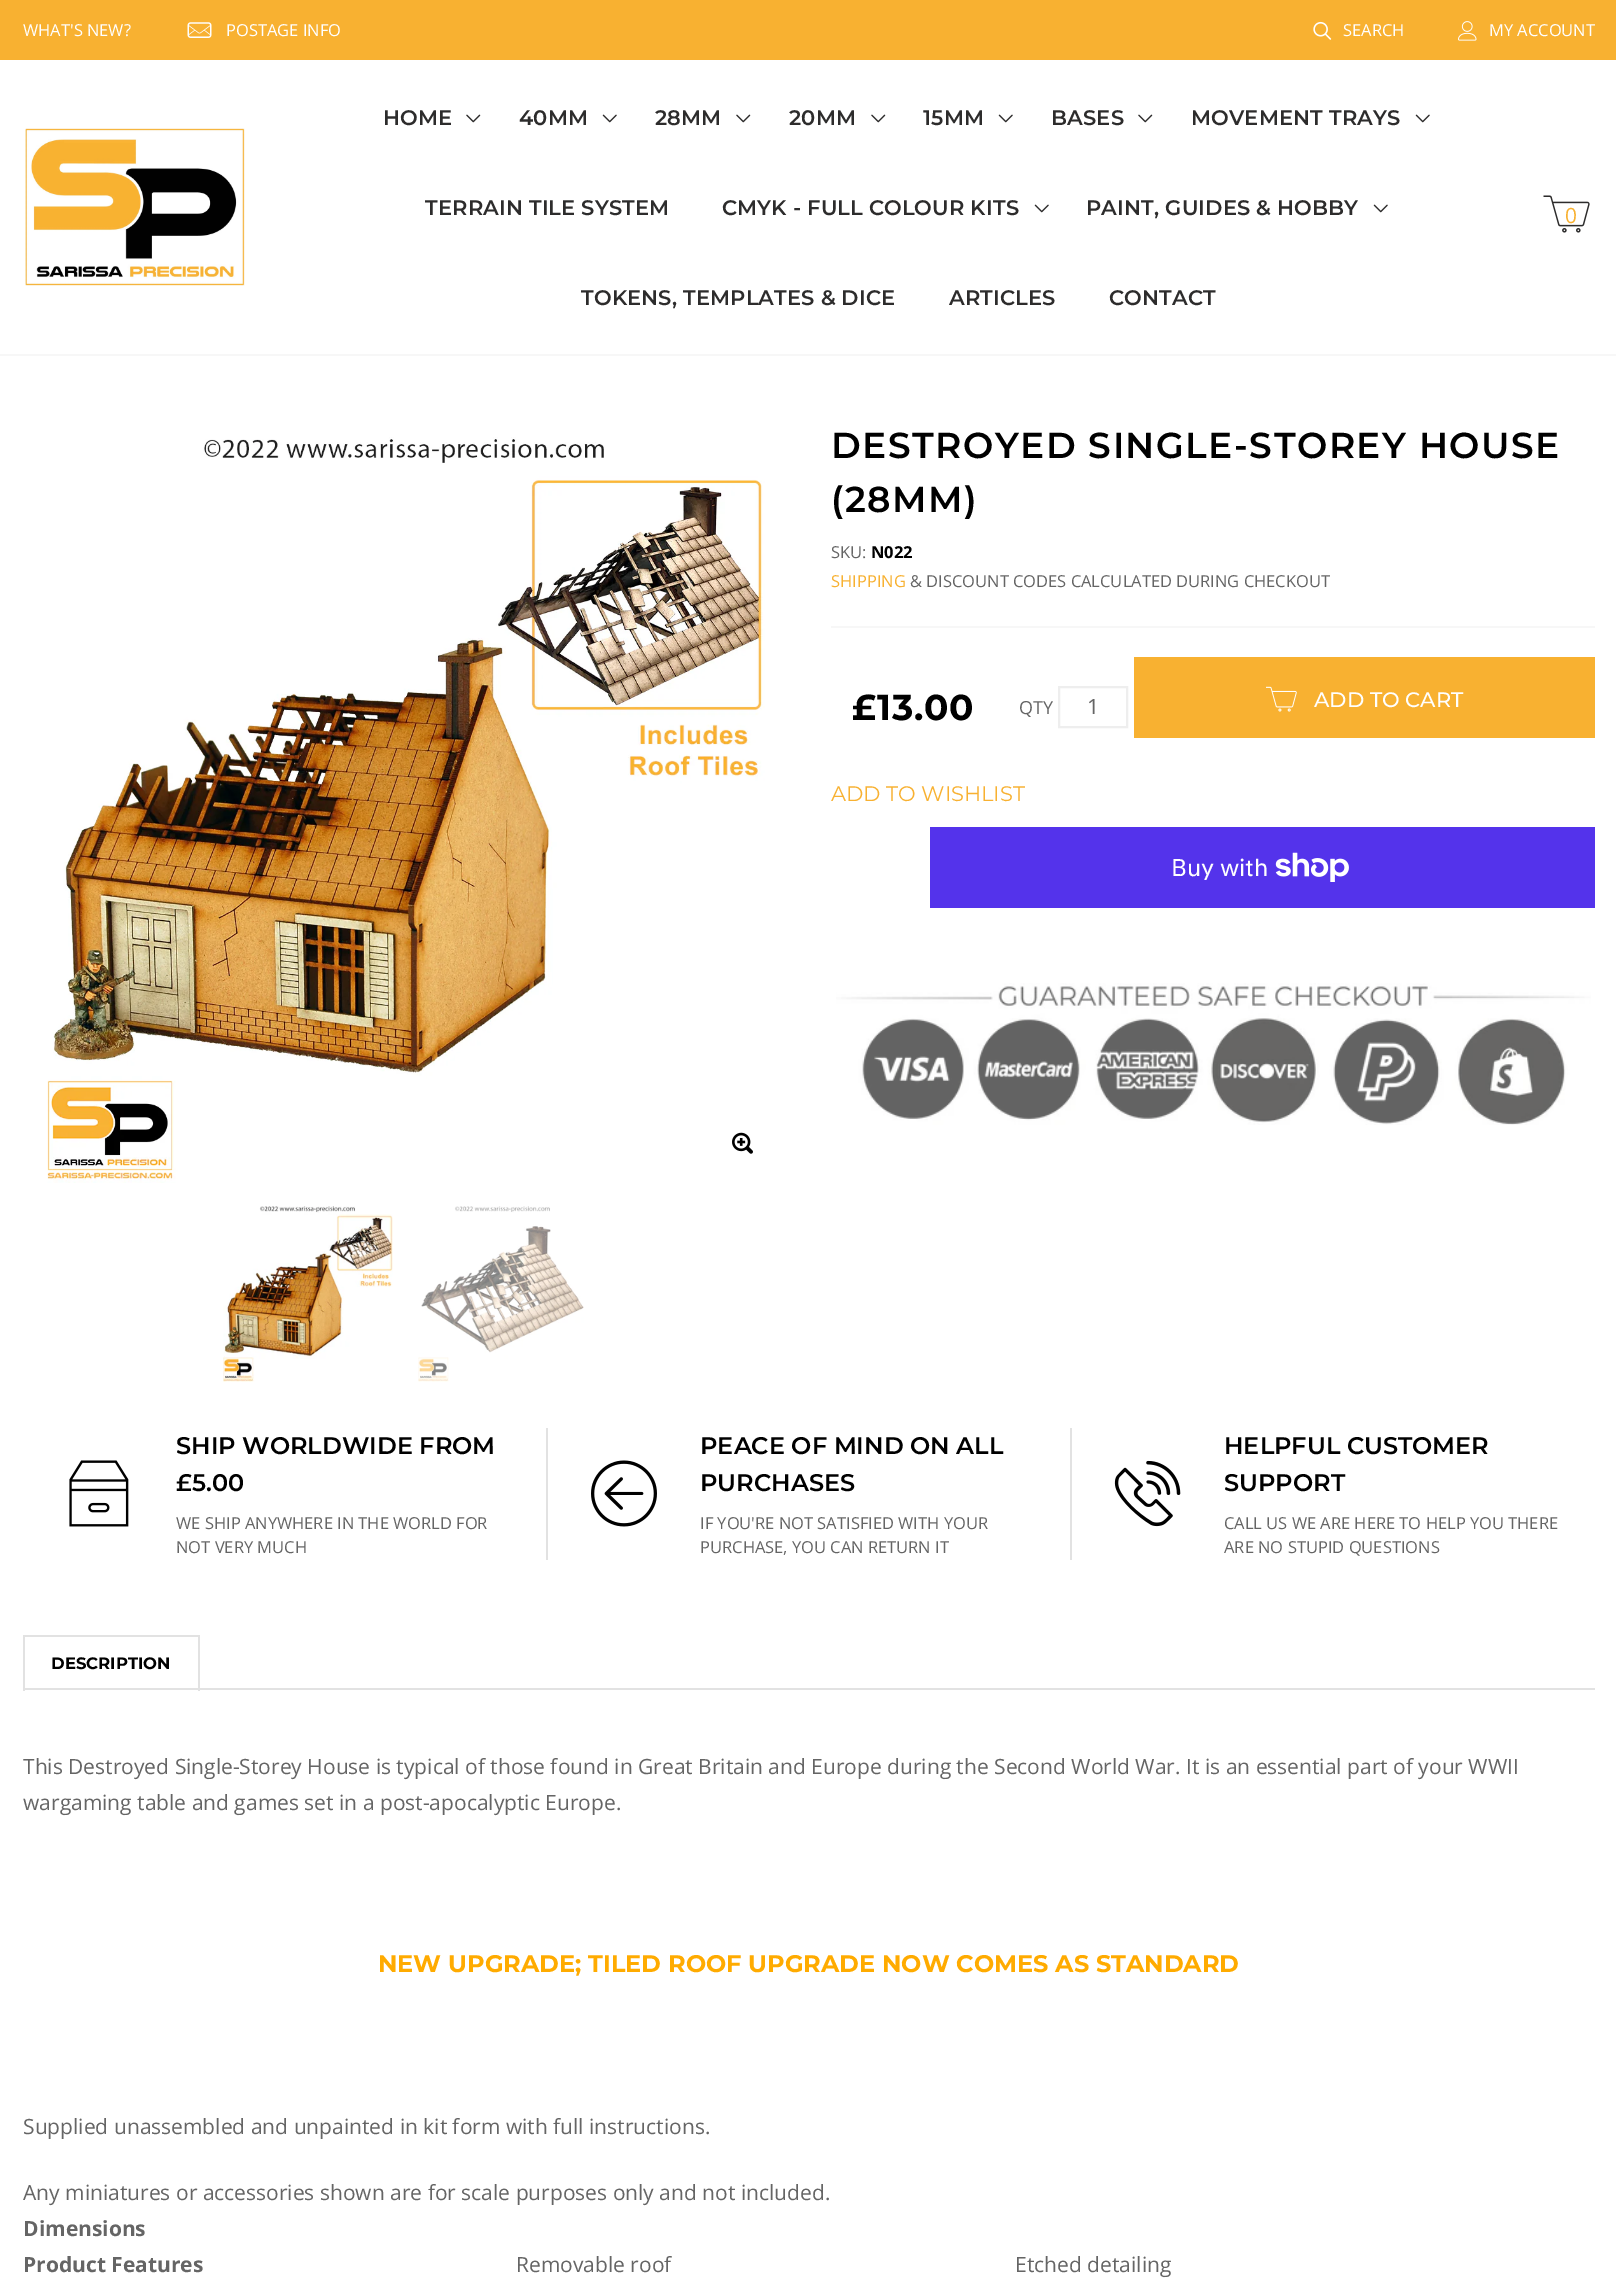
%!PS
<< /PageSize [1616 2287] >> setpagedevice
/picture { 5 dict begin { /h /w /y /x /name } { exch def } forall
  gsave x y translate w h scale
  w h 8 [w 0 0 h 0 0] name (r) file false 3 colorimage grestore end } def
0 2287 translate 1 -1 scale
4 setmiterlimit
1 setgray
0 0 1616 2287 rectfill
0.969 setgray
0 354 1616 2 rectfill
0.973 0.694 0.192 setrgbcolor
0 0 1616 60 rectfill
/OpenSans-Regular [16.5 0 0 -16.5 0 0] selectfont
1 setgray
23 36 moveto (WHAT'S NEW?) show
(img1.rgb) 187 22 25 16 picture
226 36 moveto (POSTAGE INFO) show
(img2.rgb) 1313 21 19 19 picture
1343 36 moveto (SEARCH) show
(img3.rgb) 1458 21 19 20 picture
1489 36 moveto (MY ACCOUNT) show
(img4.rgb) 25 128 220 158 picture
/Montserrat-SemiBold [21 0 0 -21 0 0] selectfont
0.176 0.173 0.173 setrgbcolor
383 125 moveto 0.15 0 (HOME) ashow
(img5.rgb) 466 114 15 9 picture
519 125 moveto 0.15 0 (40MM) ashow
(img6.rgb) 602 114 15 9 picture
655 125 moveto 0.15 0 (28MM) ashow
(img5.rgb) 736 114 15 9 picture
789 125 moveto 0.15 0 (20MM) ashow
(img5.rgb) 871 114 15 9 picture
923 125 moveto 0.15 0 (15MM) ashow
(img6.rgb) 998 114 15 9 picture
1051 125 moveto 0.15 0 (BASES) ashow
(img5.rgb) 1138 114 15 9 picture
1191 125 moveto 0.15 0 (MOVEMENT TRAYS) ashow
(img6.rgb) 1415 114 15 9 picture
425 215 moveto 0.15 0 (TERRAIN TILE SYSTEM) ashow
722 215 moveto 0.15 0 (CMYK - FULL COLOUR KITS) ashow
(img6.rgb) 1034 204 15 9 picture
1086 215 moveto 0.15 0 (PAINT, GUIDES & HOBBY) ashow
(img6.rgb) 1373 204 15 9 picture
581 305 moveto 0.15 0 (TOKENS, TEMPLATES & DICE) ashow
949 305 moveto 0.15 0 (ARTICLES) ashow
1109 305 moveto 0.15 0 (CONTACT) ashow
(img7.rgb) 1543 195 47 38 picture
/OpenSans-Regular [21 0 0 -21 0 0] selectfont
0.973 0.694 0.192 setrgbcolor
1565 223 moveto (0) show
(img8.rgb) 47 437 718 746 picture
(img9.rgb) 732 1132 21 22 picture
(img10.rgb) 223 1206 170 176 picture
(img11.rgb) 418 1206 166 176 picture
/Montserrat-SemiBold [36 0 0 -36 0 0] selectfont
0 setgray
831 458 moveto 1.5 0 (DESTROYED SINGLE-STOREY HOUSE) ashow
831 512 moveto 1.5 0 (\(28MM\)) ashow
/OpenSans-Regular [16.5 0 0 -16.5 0 0] selectfont
0.396 setgray
831 558 moveto (SKU:) show
/OpenSans-Bold [16.5 0 0 -16.5 0 0] selectfont
0 setgray
871 558 moveto (N022) show
/OpenSans-Regular [16.5 0 0 -16.5 0 0] selectfont
0.973 0.694 0.192 setrgbcolor
831 587 moveto (SHIPPING) show
0.396 setgray
910 587 moveto (& DISCOUNT CODES CALCULATED DURING CHECKOUT) show
0.969 setgray
831 626 764 2 rectfill
/Montserrat-Bold [36 0 0 -36 0 0] selectfont
0 setgray
852 720 moveto 0.75 0 (£13.00) ashow
/OpenSans-Regular [18 0 0 -18 0 0] selectfont
0.396 setgray
1019 714 moveto (QTY) show
0.933 setgray
2 setlinewidth
1059 687 68 40 rectstroke
/OpenSans-Regular [21 0 0 -21 0 0] selectfont
0.396 setgray
1087 714 moveto (1) show
0.973 0.694 0.192 setrgbcolor
1134 657 461 81 rectfill
(img12.rgb) 1266 686 31 26 picture
/Montserrat-Medium [21 0 0 -21 0 0] selectfont
1 setgray
1314 707 moveto (ADD TO CART) show
/Montserrat-Regular [21 0 0 -21 0 0] selectfont
0.973 0.694 0.192 setrgbcolor
831 801 moveto (ADD TO WISHLIST) show
0.329 0.2 0.922 setrgbcolor
930 827 665 81 rectfill
/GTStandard-Regular [24 0 0 -24 0 0] selectfont
1 setgray
1171 876 moveto (Buy with) show
(img13.rgb) 1275 852 74 30 picture
(img14.rgb) 836 983 755 142 picture
(img15.rgb) 69 1460 60 67 picture
/Montserrat-SemiBold [24 0 0 -24 0 0] selectfont
0 setgray
176 1454 moveto (SHIP WORLDWIDE FROM) show
176 1491 moveto (£5.00) show
/OpenSans-Regular [16.5 0 0 -16.5 0 0] selectfont
0.396 setgray
176 1529 moveto (WE SHIP ANYWHERE IN THE WORLD FOR) show
176 1553 moveto (NOT VERY MUCH) show
0.886 setgray
546 1428 2 132 rectfill
(img16.rgb) 591 1460 66 67 picture
/Montserrat-SemiBold [24 0 0 -24 0 0] selectfont
0 setgray
700 1454 moveto (PEACE OF MIND ON ALL) show
700 1491 moveto (PURCHASES) show
/OpenSans-Regular [16.5 0 0 -16.5 0 0] selectfont
0.396 setgray
700 1529 moveto (IF YOU'RE NOT SATISFIED WITH YOUR) show
700 1553 moveto (PURCHASE, YOU CAN RETURN IT) show
0.886 setgray
1070 1428 2 132 rectfill
(img17.rgb) 1114 1460 67 67 picture
/Montserrat-SemiBold [24 0 0 -24 0 0] selectfont
0 setgray
1224 1454 moveto (HELPFUL CUSTOMER) show
1224 1491 moveto (SUPPORT) show
/OpenSans-Regular [16.5 0 0 -16.5 0 0] selectfont
0.396 setgray
1224 1529 moveto (CALL US WE ARE HERE TO HELP YOU THERE) show
1224 1553 moveto (ARE NO STUPID QUESTIONS) show
0.886 setgray
23 1688 1572 2 rectfill
23 1635 177 2 rectfill
198 1635 2 56 rectfill
23 1635 2 56 rectfill
/Montserrat-Bold [16.5 0 0 -16.5 0 0] selectfont
0 setgray
51 1669 moveto (DESCRIPTION) show
/OpenSans-Regular [21 0 0 -21 0 0] selectfont
0.396 setgray
23 1774 moveto (This Destroyed Single-Storey House is typical of those found in Great Britain and Europe during the Second World War. It is an essential part of your WWII) show
23 1810 moveto (wargaming table and games set in a post-apocalyptic Europe.) show
/Montserrat-Bold [24 0 0 -24 0 0] selectfont
1 0.671 0 setrgbcolor
378 1972 moveto (NEW UPGRADE; TILED ROOF UPGRADE NOW COMES AS STANDARD) show
/OpenSans-Regular [21 0 0 -21 0 0] selectfont
0.396 setgray
23 2134 moveto (Supplied unassembled and unpainted in kit form with full instructions.) show
23 2200 moveto (Any miniatures or accessories shown are for scale purposes only and not included.) show
/OpenSans-Bold [21 0 0 -21 0 0] selectfont
23 2236 moveto (Dimensions) show
23 2272 moveto (Product Features) show
/OpenSans-Regular [21 0 0 -21 0 0] selectfont
516 2272 moveto (Removable roof) show
1015 2272 moveto (Etched detailing) show
showpage
